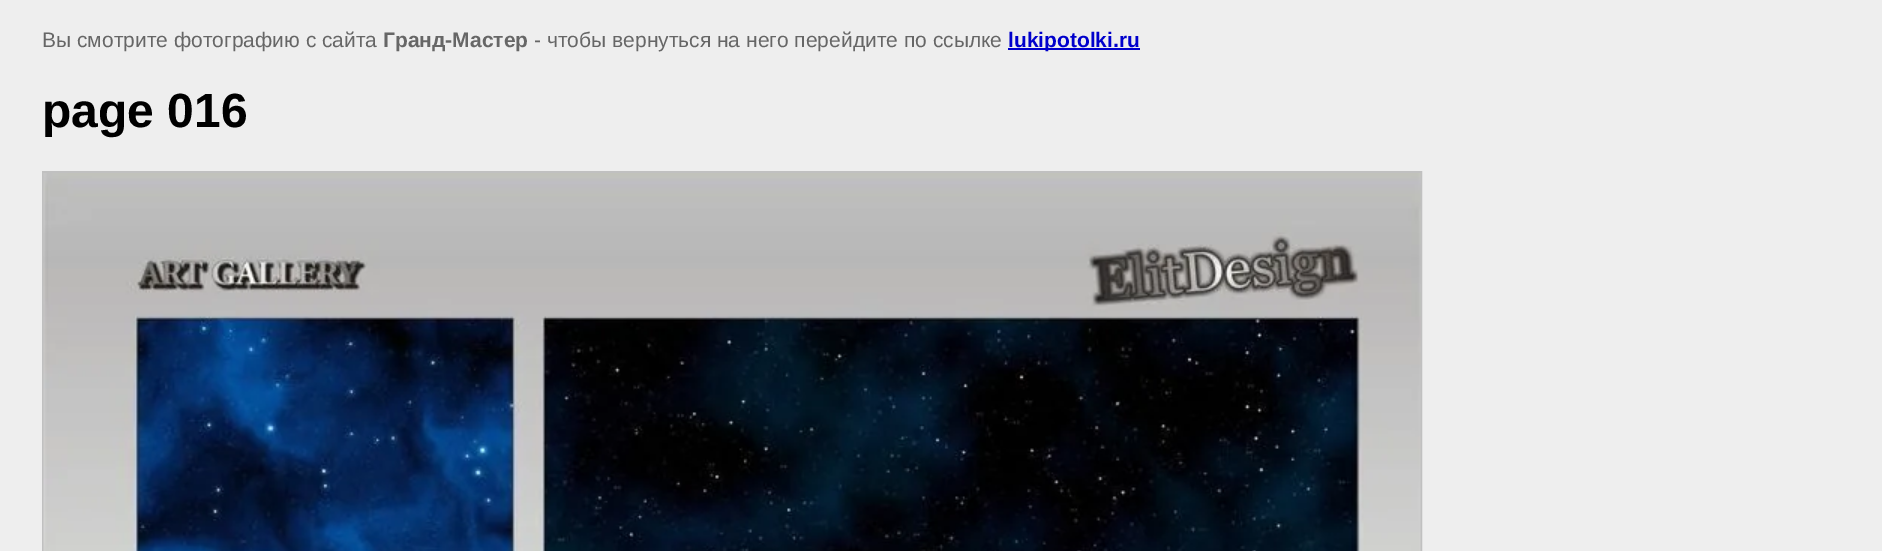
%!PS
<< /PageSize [1882 551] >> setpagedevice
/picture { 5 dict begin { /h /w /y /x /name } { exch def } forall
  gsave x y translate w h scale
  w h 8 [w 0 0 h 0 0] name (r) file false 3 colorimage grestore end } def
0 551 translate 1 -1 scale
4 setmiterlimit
0.933 setgray
0 0 1882 551 rectfill
/LiberationSans-Regular [21 0 0 -21 0 0] selectfont
0.4 setgray
42 47 moveto (Вы смотрите фотографию с сайта) show
/LiberationSans-Bold [21 0 0 -21 0 0] selectfont
383 47 moveto (Гранд-Мастер) show
/LiberationSans-Regular [21 0 0 -21 0 0] selectfont
534 47 moveto (- чтобы вернуться на него перейдите по ссылке) show
0 0 0.8 setrgbcolor
1008 48 132 2 rectfill
/LiberationSans-Bold [21 0 0 -21 0 0] selectfont
1008 47 moveto (lukipotolki.ru) show
/LiberationSans-Bold [48 0 0 -48 0 0] selectfont
0 setgray
42 127 moveto (page 016) show
0.753 setgray
2 setlinewidth
43 172 1378 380 rectstroke
(img1.rgb) 43 173 1378 378 picture
showpage
